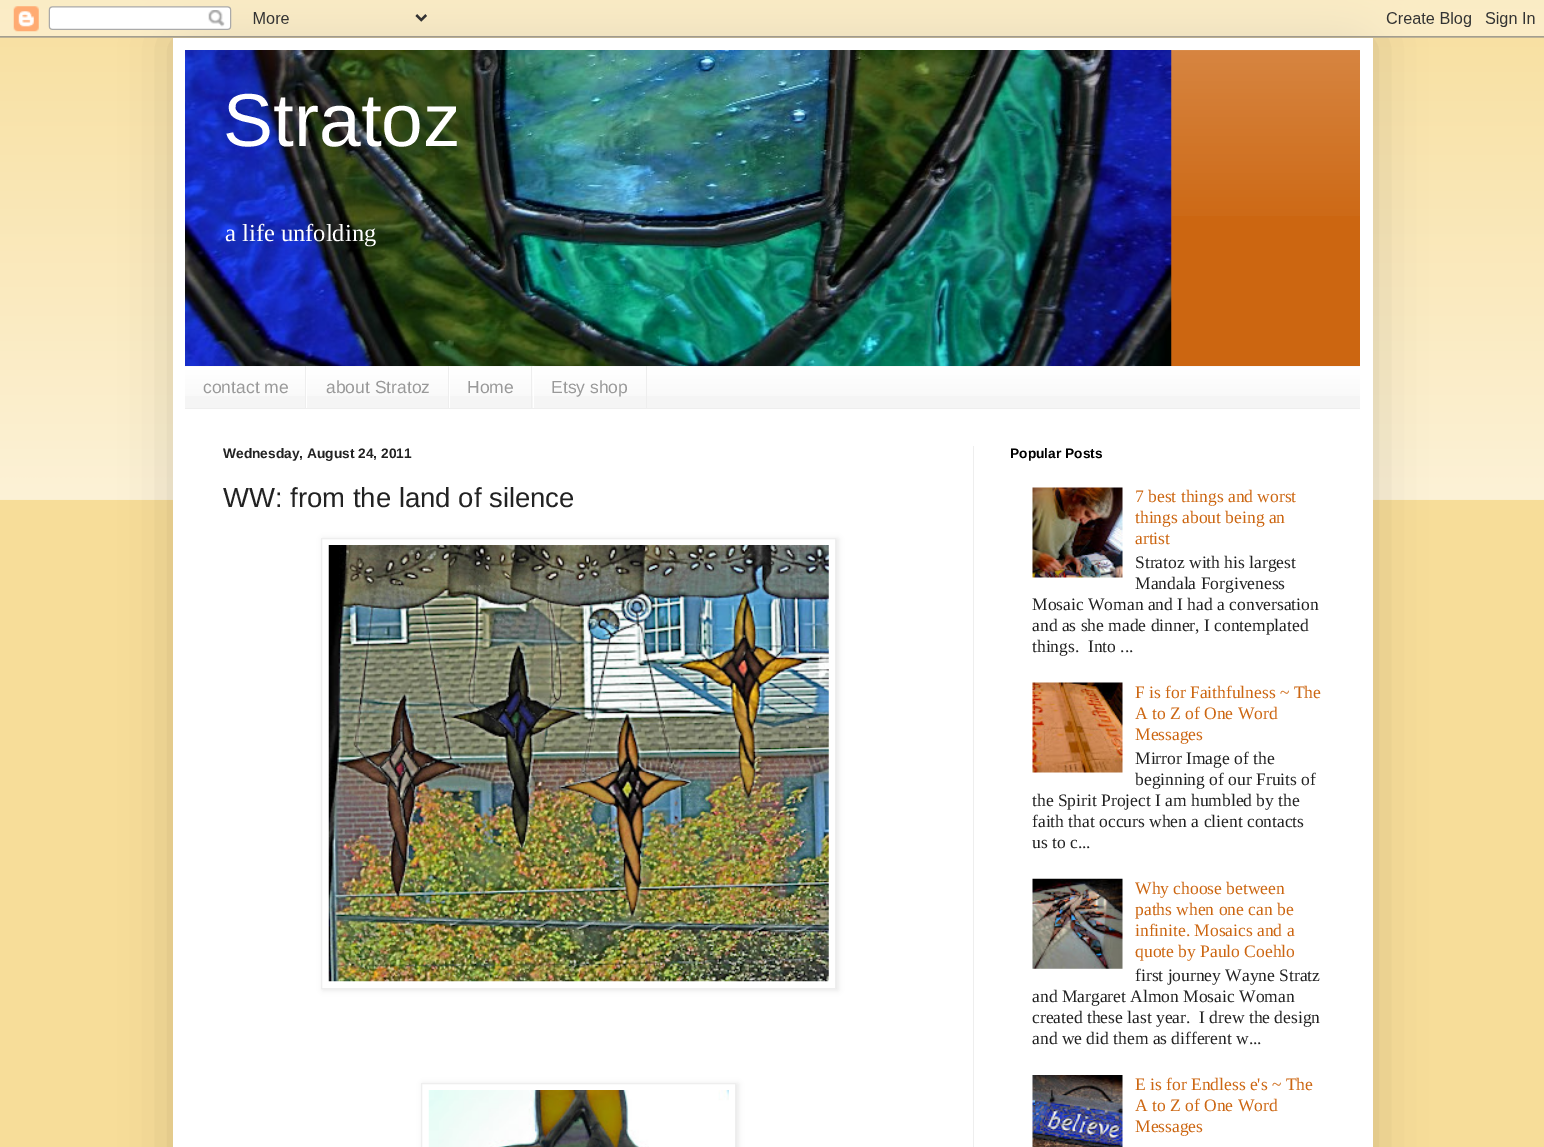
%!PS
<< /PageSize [1544 1147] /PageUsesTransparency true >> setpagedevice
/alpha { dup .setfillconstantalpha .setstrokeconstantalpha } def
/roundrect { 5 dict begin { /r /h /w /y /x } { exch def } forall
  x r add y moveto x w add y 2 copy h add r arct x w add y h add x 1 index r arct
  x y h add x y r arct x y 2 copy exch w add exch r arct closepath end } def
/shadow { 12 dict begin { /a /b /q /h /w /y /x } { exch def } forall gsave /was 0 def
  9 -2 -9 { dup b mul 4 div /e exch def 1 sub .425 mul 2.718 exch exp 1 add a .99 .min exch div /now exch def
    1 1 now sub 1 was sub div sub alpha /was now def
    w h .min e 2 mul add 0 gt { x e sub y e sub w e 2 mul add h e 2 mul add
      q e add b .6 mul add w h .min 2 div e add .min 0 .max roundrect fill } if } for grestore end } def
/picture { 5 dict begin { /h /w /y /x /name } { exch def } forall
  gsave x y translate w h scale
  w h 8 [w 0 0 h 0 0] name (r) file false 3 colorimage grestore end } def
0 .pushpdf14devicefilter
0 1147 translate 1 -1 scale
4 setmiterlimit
0.969 0.867 0.6 setrgbcolor
0 0 1544 1147 rectfill
(img1.rgb) 0 0 1544 500 picture
0 setgray
173 38 1200 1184 0 25 0.15 shadow
(img2.rgb) 0 0 1544 38 picture
1 setgray
173 38 1200 1109 rectfill
0.8 0.4 0.067 setrgbcolor
1171 50 189 316 rectfill
(img3.rgb) 1171 50 189 166 picture
(img4.rgb) 185 50 987 316 picture
/LiberationSans-Regular [75 0 0 -75 0 0] selectfont
1 setgray
223 146 moveto (Stratoz) show
/LiberationSerif-Regular [24.5 0 0 -24.5 0 0] selectfont
225 241 moveto (a life unfolding) show
0.961 setgray
185 366 1175 42 rectfill
(img5.rgb) 185 366 1175 30 picture
0.933 setgray
185 408 1175 1 rectfill
305 366 1 42 rectfill
/LiberationSans-Regular [17.5 0 0 -17.5 0 0] selectfont
0.6 setgray
203 393 moveto (contact me) show
0.933 setgray
448 366 1 42 rectfill
1 setgray
306 366 1 42 rectfill
0.6 setgray
326 393 moveto (about Stratoz) show
0.933 setgray
531 366 1 42 rectfill
1 setgray
449 366 1 42 rectfill
0.6 setgray
467 393 moveto (Home) show
0.933 setgray
646 366 1 42 rectfill
1 setgray
533 366 1 42 rectfill
0.6 setgray
551 393 moveto (Etsy shop) show
0.933 setgray
973 446 1 701 rectfill
/LiberationSans-Bold [13.75 0 0 -13.75 0 0] selectfont
0.133 setgray
223 458 moveto (Wednesday, August 24, 2011) show
/LiberationSans-Regular [27.5 0 0 -27.5 0 0] selectfont
223 507 moveto (WW: from the land of silence) show
0 setgray
323 539 515 451 0 3 0.1 shadow
1 setgray
newpath 321.5 538.5 moveto 835.5 538.5 lineto 835.5 988.5 lineto 321.5 988.5 lineto closepath gsave fill grestore
0.933 setgray
stroke
(img6.rgb) 328 545 501 437 picture
0 setgray
423 1084 315 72 0 3 0.1 shadow
1 setgray
newpath 421.5 1083.5 moveto 735.5 1083.5 lineto 735.5 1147.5 lineto 421.5 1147.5 lineto closepath gsave fill grestore
0.933 setgray
stroke
(img7.rgb) 428 1090 301 57 picture
/LiberationSans-Bold [13.75 0 0 -13.75 0 0] selectfont
0 setgray
1010 458 moveto (Popular Posts) show
(img8.rgb) 1032 487 91 91 picture
/LiberationSerif-Regular [17.5 0 0 -17.5 0 0] selectfont
0.8 0.4 0.067 setrgbcolor
1135 502 moveto (7 best things and worst) show
1135 523 moveto (things about being an) show
1135 544 moveto (artist) show
0.133 setgray
1135 568 moveto (Stratoz with his largest) show
1135 589 moveto (Mandala Forgiveness) show
1032 610 moveto (Mosaic Woman and I had a conversation) show
1032 631 moveto (and as she made dinner, I contemplated) show
1032 652 moveto (things.  Into ...) show
(img9.rgb) 1032 682 91 91 picture
0.8 0.4 0.067 setrgbcolor
1135 698 moveto (F is for Faithfulness ~ The) show
1135 719 moveto (A to Z of One Word) show
1135 740 moveto (Messages) show
0.133 setgray
1135 764 moveto (Mirror Image of the) show
1135 785 moveto (beginning of our Fruits of) show
1032 806 moveto (the Spirit Project I am humbled by the) show
1032 827 moveto (faith that occurs when a client contacts) show
1032 848 moveto (us to c...) show
(img10.rgb) 1032 878 91 91 picture
0.8 0.4 0.067 setrgbcolor
1135 894 moveto (Why choose between) show
1135 915 moveto (paths when one can be) show
1135 936 moveto (infinite. Mosaics and a) show
1135 957 moveto (quote by Paulo Coehlo) show
0.133 setgray
1135 981 moveto (first journey Wayne Stratz) show
1032 1002 moveto (and Margaret Almon Mosaic Woman) show
1032 1023 moveto (created these last year.  I drew the design) show
1032 1044 moveto (and we did them as different w...) show
(img11.rgb) 1032 1075 91 72 picture
0.8 0.4 0.067 setrgbcolor
1135 1090 moveto (E is for Endless e's ~ The) show
1135 1111 moveto (A to Z of One Word) show
1135 1132 moveto (Messages) show
.poppdf14devicefilter showpage
